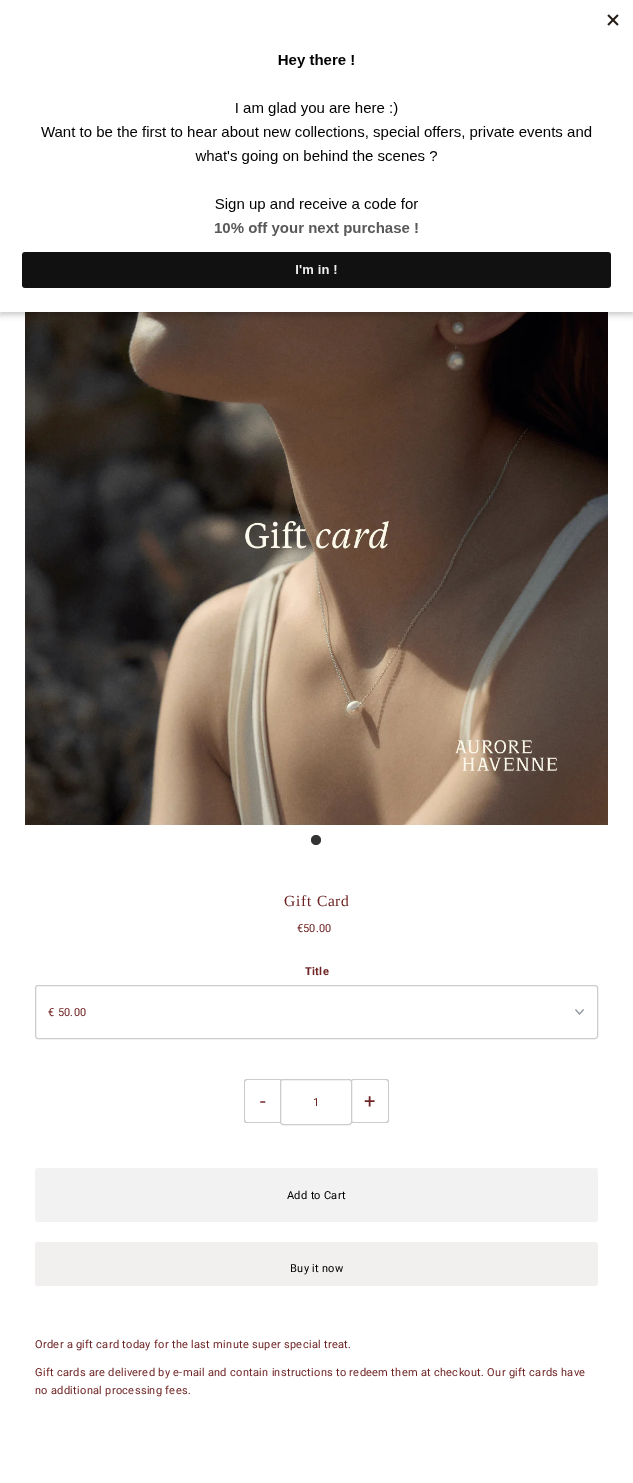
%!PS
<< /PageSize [633 1483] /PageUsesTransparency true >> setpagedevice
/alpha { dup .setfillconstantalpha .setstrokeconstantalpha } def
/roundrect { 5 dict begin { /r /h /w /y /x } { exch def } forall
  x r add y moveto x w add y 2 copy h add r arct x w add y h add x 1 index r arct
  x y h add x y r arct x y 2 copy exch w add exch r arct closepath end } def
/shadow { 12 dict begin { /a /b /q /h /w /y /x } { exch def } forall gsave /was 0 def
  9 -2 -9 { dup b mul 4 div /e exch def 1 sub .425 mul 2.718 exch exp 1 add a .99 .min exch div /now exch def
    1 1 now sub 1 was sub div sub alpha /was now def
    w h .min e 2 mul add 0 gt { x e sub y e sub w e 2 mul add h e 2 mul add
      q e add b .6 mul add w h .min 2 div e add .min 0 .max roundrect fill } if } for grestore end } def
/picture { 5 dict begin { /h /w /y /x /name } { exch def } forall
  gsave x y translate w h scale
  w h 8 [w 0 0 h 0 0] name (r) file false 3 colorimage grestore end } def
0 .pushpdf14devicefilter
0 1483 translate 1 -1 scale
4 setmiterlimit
1 setgray
0 0 633 1483 rectfill
(img2.rgb) 25 312 583 513 picture
0 setgray
0 3 633 312 0 3 0.2 shadow
1 setgray
0 0 633 312 rectfill
(img1.rgb) 22 14 597 274 picture
0.2 setgray
newpath 316 840 5 0 360 arc closepath fill
/LiberationSerif-Regular [15.5 0 0 -15.5 0 0] selectfont
0.431 0.133 0.133 setrgbcolor
284 906 moveto 0.75 0 (Gift Card) ashow
/Roboto-Regular [11.05 0 0 -11.05 0 0] selectfont
297 932 moveto (€50.00) show
/Roboto-Bold [11.05 0 0 -11.05 0 0] selectfont
305 975 moveto 0.28 0 (Title) ashow
(img3.rgb) 575 1009 9 6 picture
0.8 setgray
35.5 985.5 562 53 2.5 roundrect stroke
/Roboto-Regular [11.05 0 0 -11.05 0 0] selectfont
0.431 0.133 0.133 setrgbcolor
48 1016 moveto 0.28 0 (€ 50.00) ashow
0.8 setgray
newpath 247 1079 moveto 279 1079 lineto 281 1079 282 1080 282 1082 curveto 282 1120 lineto 282 1122 281 1123 279 1123 curveto 247 1123 lineto 245 1123 244 1122 244 1120 curveto 244 1082 lineto 244 1080 245 1079 247 1079 curveto closepath 247 1080 moveto 279 1080 lineto 281 1080 282 1081 282 1082 curveto 282 1120 lineto 282 1121 281 1122 279 1122 curveto 247 1122 lineto 246 1122 245 1121 245 1120 curveto 245 1082 lineto 245 1081 246 1080 247 1080 curveto closepath eofill
/Roboto-Regular [20 0 0 -20 0 0] selectfont
0.431 0.133 0.133 setrgbcolor
260 1108 moveto (-) show
1 setgray
280.5 1079.5 71 45 2.5 roundrect gsave fill grestore
0.8 setgray
stroke
/Roboto-Regular [11.05 0 0 -11.05 0 0] selectfont
0.431 0.133 0.133 setrgbcolor
313 1106 moveto 0.28 0 (1) ashow
0.8 setgray
newpath 354 1079 moveto 386 1079 lineto 388 1079 389 1080 389 1082 curveto 389 1120 lineto 389 1122 388 1123 386 1123 curveto 354 1123 lineto 352 1123 351 1122 351 1120 curveto 351 1082 lineto 351 1080 352 1079 354 1079 curveto closepath 354 1080 moveto 386 1080 lineto 387 1080 388 1081 388 1082 curveto 388 1120 lineto 388 1121 387 1122 386 1122 curveto 354 1122 lineto 352 1122 351 1121 351 1120 curveto 351 1082 lineto 351 1081 352 1080 354 1080 curveto closepath eofill
/Roboto-Regular [20 0 0 -20 0 0] selectfont
0.431 0.133 0.133 setrgbcolor
364 1108 moveto (+) show
0.949 setgray
35 1168 563 54 3 roundrect fill
/Roboto-Regular [11.05 0 0 -11.05 0 0] selectfont
0 setgray
287 1199 moveto 0.28 0 (Add to Cart) ashow
0.949 0.937 0.937 setrgbcolor
35 1242 563 44 3 roundrect fill
0 setgray
290 1272 moveto 0.28 0 (Buy it now) ashow
0.431 0.133 0.133 setrgbcolor
35 1348 moveto 0.28 0 (Order a gift card today for the last minute super special treat.) ashow
35 1376 moveto 0.28 0 (Gift cards are delivered by e-mail and contain instructions to redeem them at checkout. Our gift cards have) ashow
35 1394 moveto 0.28 0 (no additional processing fees.) ashow
.poppdf14devicefilter showpage
